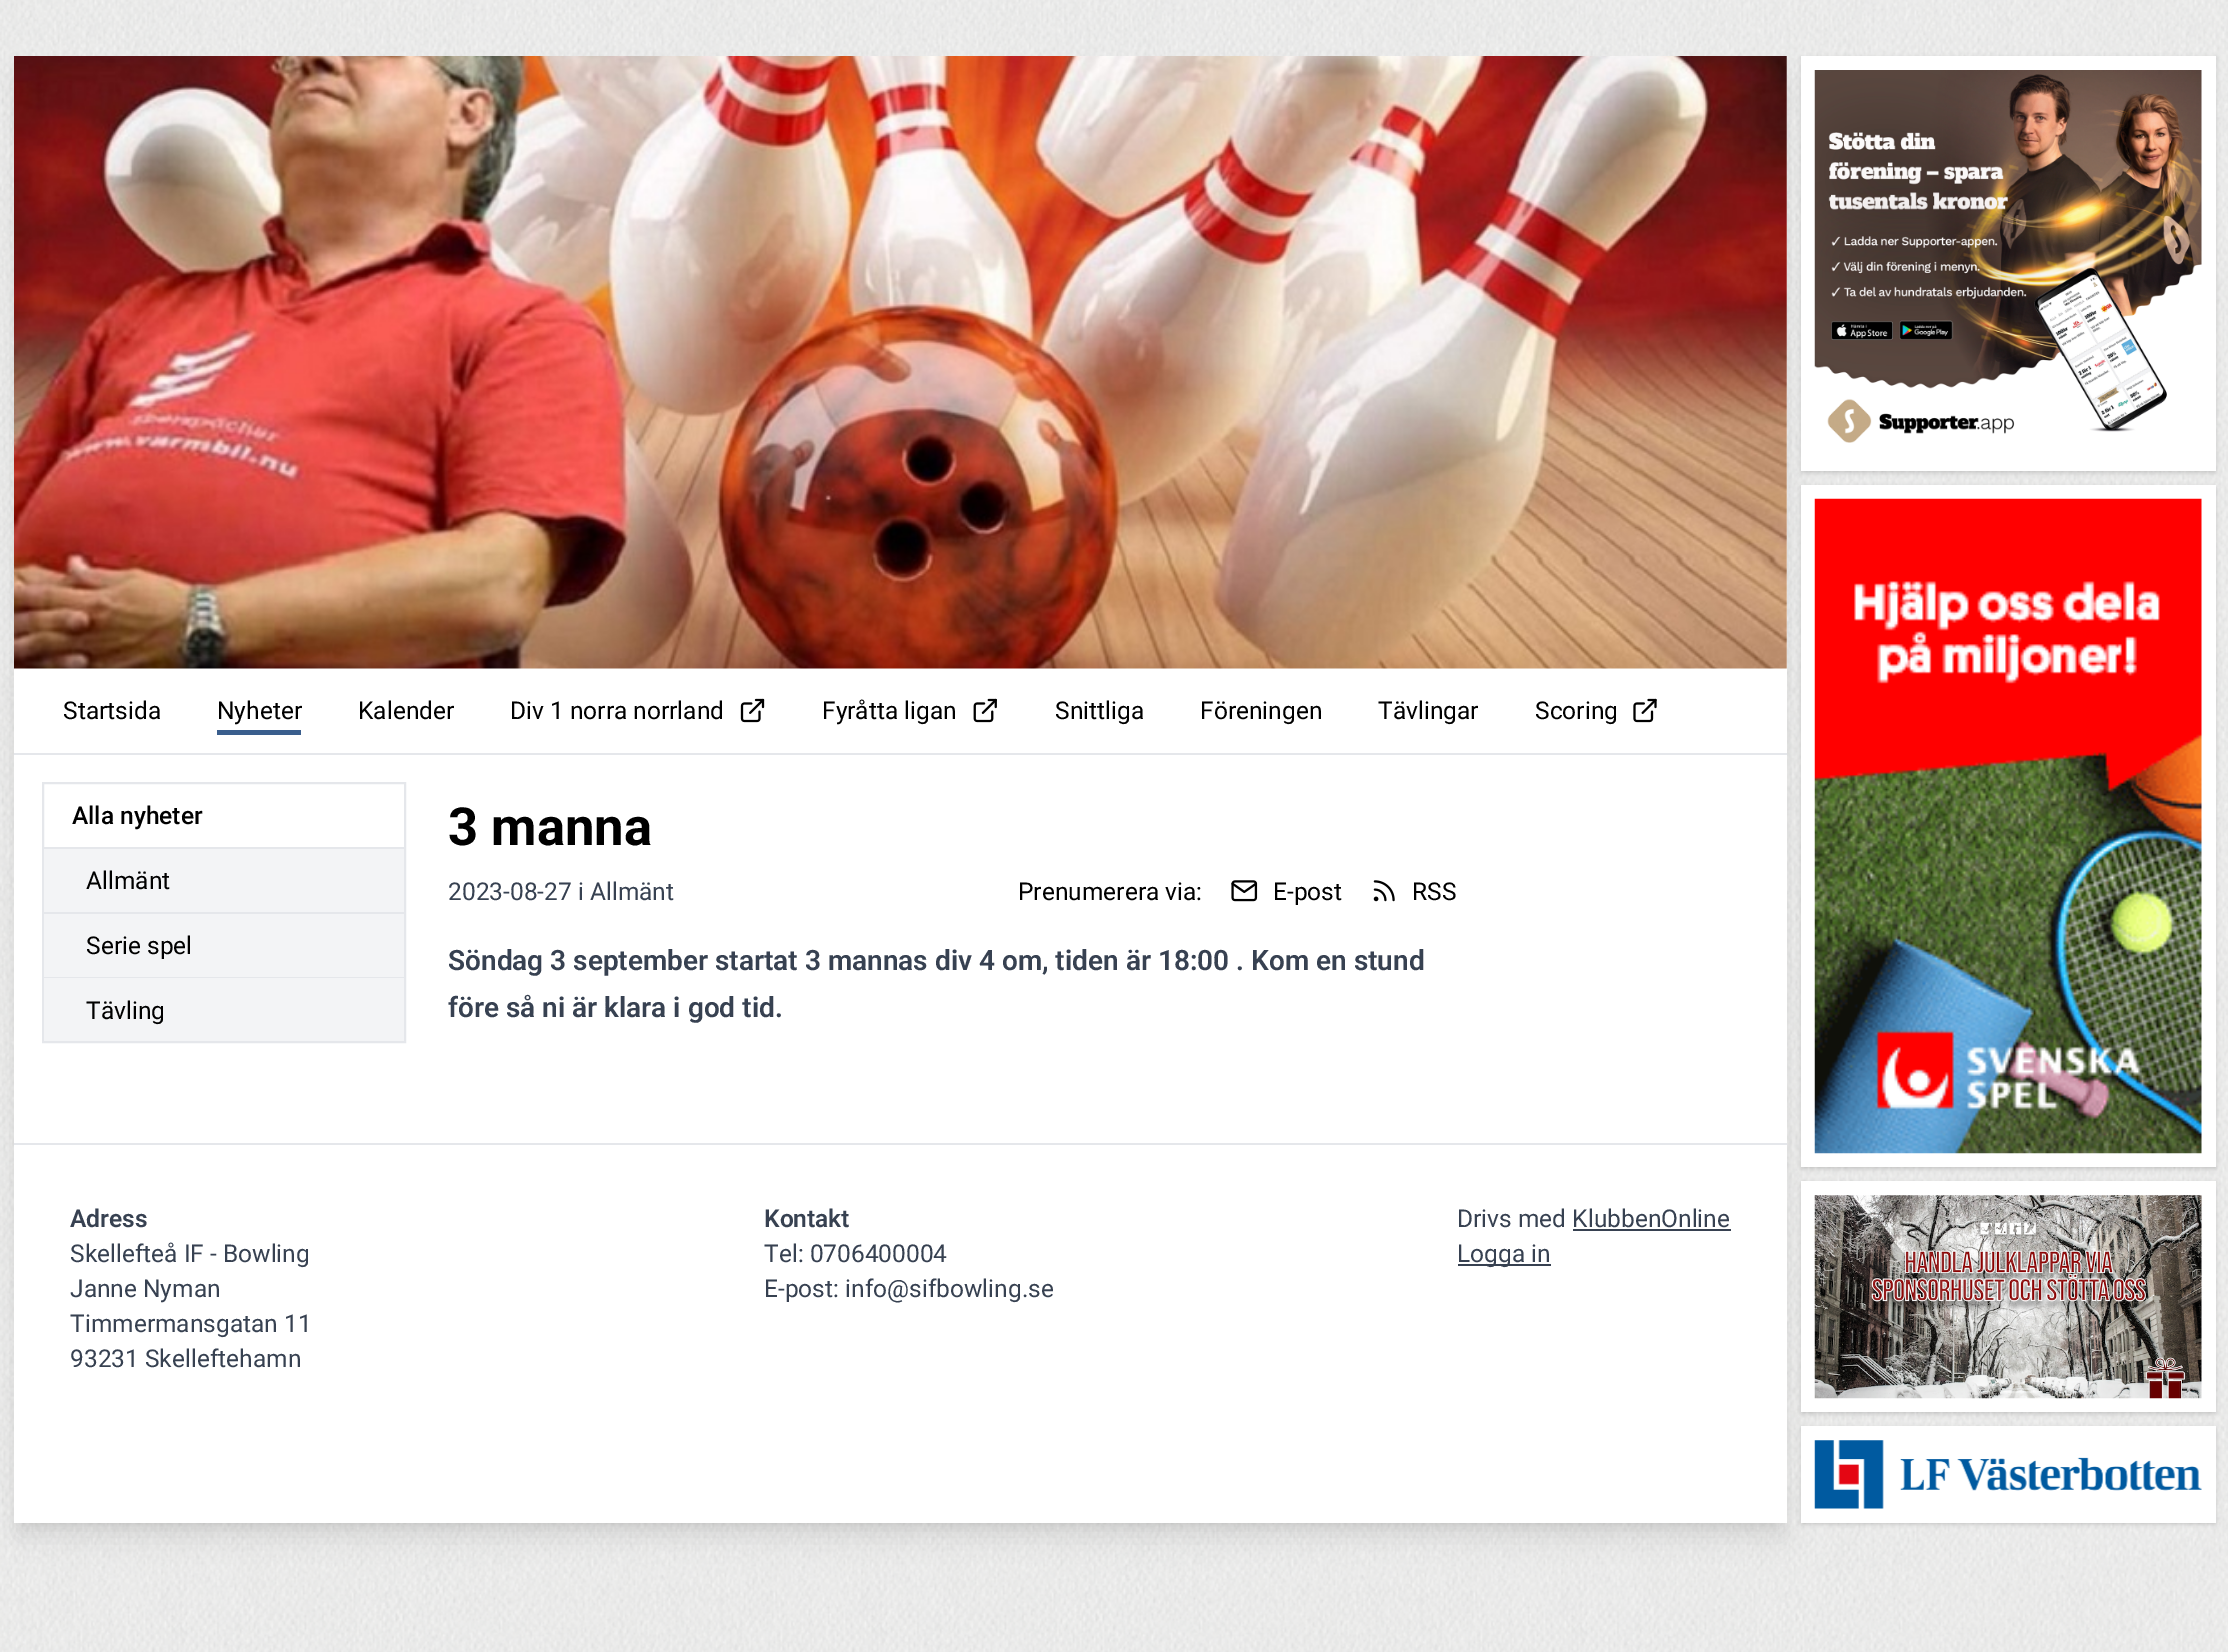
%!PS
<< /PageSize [2228 1652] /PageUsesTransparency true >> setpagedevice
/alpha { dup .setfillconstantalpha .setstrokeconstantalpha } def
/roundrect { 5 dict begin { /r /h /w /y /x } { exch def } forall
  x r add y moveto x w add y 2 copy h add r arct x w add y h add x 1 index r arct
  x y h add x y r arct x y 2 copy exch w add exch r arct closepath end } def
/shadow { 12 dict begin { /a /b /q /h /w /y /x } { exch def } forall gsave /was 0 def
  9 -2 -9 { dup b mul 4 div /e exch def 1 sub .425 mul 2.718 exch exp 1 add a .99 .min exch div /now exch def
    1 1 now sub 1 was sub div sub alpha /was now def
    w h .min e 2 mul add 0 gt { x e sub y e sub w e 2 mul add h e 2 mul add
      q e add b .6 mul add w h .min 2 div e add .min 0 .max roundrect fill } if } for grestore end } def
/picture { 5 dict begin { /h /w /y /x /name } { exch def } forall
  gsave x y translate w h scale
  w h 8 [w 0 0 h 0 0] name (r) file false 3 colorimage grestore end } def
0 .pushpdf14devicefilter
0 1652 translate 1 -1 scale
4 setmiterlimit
1 setgray
0 0 2228 1652 rectfill
(img1.rgb) 0 0 2228 1652 picture
0 setgray
21 70 1759 1453 0 5 0.1 shadow
19 79 1763 1456 0 13 0.1 shadow
1 setgray
14 56 1773 1467 rectfill
(img2.rgb) 14 56 1773 613 picture
0.898 0.906 0.922 setrgbcolor
14 753 1773 2 rectfill
/Roboto-Regular [24.5 0 0 -24.5 0 0] selectfont
0 setgray
63 719 moveto (Startsida) show
0.227 0.369 0.553 setrgbcolor
217 730 84 5 rectfill
0 setgray
217 719 moveto (Nyheter) show
358 719 moveto (Kalender) show
510 719 moveto (Div 1 norra norrland) show
(img3.rgb) 740 698 25 25 picture
822 719 moveto (Fyråtta ligan) show
(img4.rgb) 973 698 24 25 picture
1055 719 moveto (Snittliga) show
1200 719 moveto (Föreningen) show
1378 719 moveto (Tävlingar) show
1535 719 moveto (Scoring) show
(img5.rgb) 1633 698 24 25 picture
0.898 0.906 0.922 setrgbcolor
2 setlinewidth
43 783 362 259 rectstroke
/Roboto-Medium [24.5 0 0 -24.5 0 0] selectfont
0 setgray
72 824 moveto (Alla nyheter) show
0.898 0.906 0.922 setrgbcolor
44 847 360 2 rectfill
0.953 0.957 0.965 setrgbcolor
44 849 360 63 rectfill
/Roboto-Regular [24.5 0 0 -24.5 0 0] selectfont
0 setgray
86 889 moveto (Allmänt) show
0.898 0.906 0.922 setrgbcolor
44 912 360 2 rectfill
0.953 0.957 0.965 setrgbcolor
44 914 360 63 rectfill
0 setgray
86 954 moveto (Serie spel) show
0.898 0.906 0.922 setrgbcolor
44 977 360 1 rectfill
0.953 0.957 0.965 setrgbcolor
44 978 360 63 rectfill
0 setgray
86 1019 moveto (Tävling) show
/Roboto-Bold [52.5 0 0 -52.5 0 0] selectfont
448 845 moveto (3 manna) show
/Roboto-Regular [24.5 0 0 -24.5 0 0] selectfont
0.216 0.255 0.318 setrgbcolor
448 900 moveto (2023-08-27 i Allmänt) show
0 setgray
1018 900 moveto (Prenumerera via:) show
(img6.rgb) 1231 880 27 22 picture
1273 900 moveto (E-post) show
(img7.rgb) 1373 880 22 22 picture
1412 900 moveto (RSS) show
/Roboto-SemiBold [28 0 0 -28 0 0] selectfont
0.216 0.255 0.318 setrgbcolor
448 970 moveto (Söndag 3 september startat 3 mannas div 4 om, tiden är 18:00 . Kom en stund) show
448 1017 moveto (före så ni är klara i god tid.) show
0.898 0.906 0.922 setrgbcolor
14 1143 1773 2 rectfill
/Roboto-SemiBold [24.5 0 0 -24.5 0 0] selectfont
0.216 0.255 0.318 setrgbcolor
70 1227 moveto (Adress) show
/Roboto-Regular [24.5 0 0 -24.5 0 0] selectfont
70 1262 moveto (Skellefteå IF - Bowling) show
70 1297 moveto (Janne Nyman) show
70 1332 moveto (Timmermansgatan 11) show
70 1367 moveto (93231 Skelleftehamn) show
/Roboto-SemiBold [24.5 0 0 -24.5 0 0] selectfont
764 1227 moveto (Kontakt) show
/Roboto-Regular [24.5 0 0 -24.5 0 0] selectfont
764 1262 moveto (Tel: 0706400004) show
764 1297 moveto (E-post: info@sifbowling.se) show
1457 1227 moveto (Drivs med KlubbenOnline) show
1573 1229 158 2 rectfill
1458 1264 93 2 rectfill
1457 1262 moveto (Logga in) show
0 setgray
1803 60 411 411 0 2 0.1 shadow
1801 58 415 415 0 2.5 0.1 shadow
1 setgray
1801 56 415 415 rectfill
(img8.rgb) 1814 70 388 373 picture
0 setgray
1803 488 411 679 0 2 0.1 shadow
1801 487 415 682 0 2.5 0.1 shadow
1 setgray
1801 485 415 682 rectfill
(img9.rgb) 1814 498 388 656 picture
0 setgray
1803 1185 411 227 0 2 0.1 shadow
1801 1183 415 231 0 2.5 0.1 shadow
1 setgray
1801 1181 415 231 rectfill
(img10.rgb) 1814 1195 388 204 picture
0 setgray
1803 1430 411 93 0 2 0.1 shadow
1801 1428 415 96 0 2.5 0.1 shadow
1 setgray
1801 1426 415 97 rectfill
(img11.rgb) 1814 1440 388 69 picture
.poppdf14devicefilter showpage
